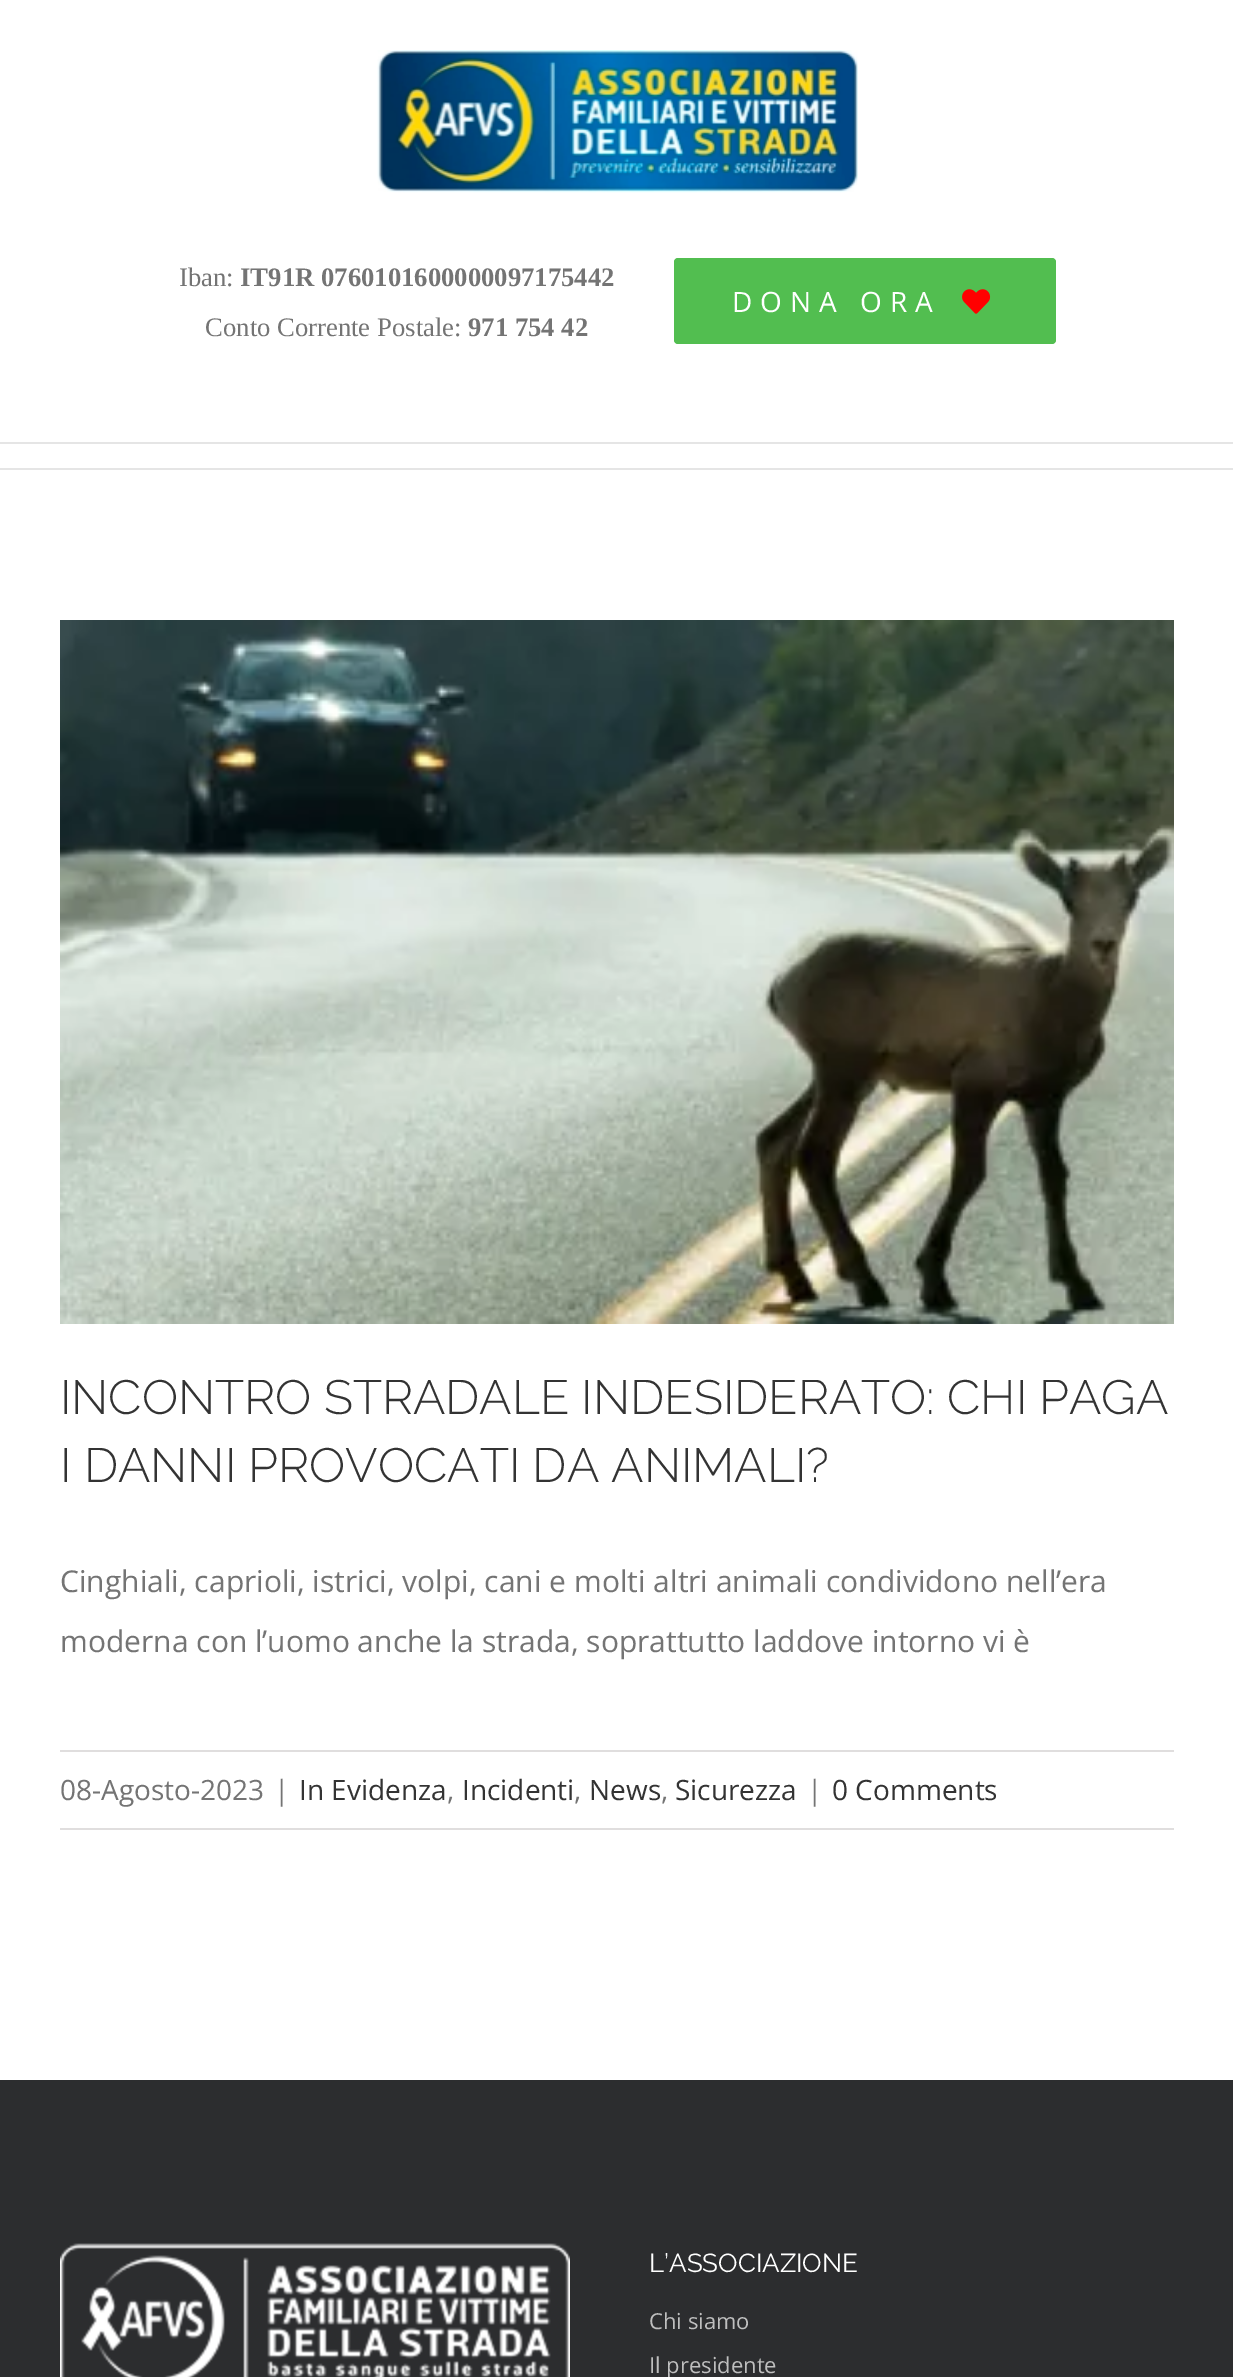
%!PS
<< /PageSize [1233 2377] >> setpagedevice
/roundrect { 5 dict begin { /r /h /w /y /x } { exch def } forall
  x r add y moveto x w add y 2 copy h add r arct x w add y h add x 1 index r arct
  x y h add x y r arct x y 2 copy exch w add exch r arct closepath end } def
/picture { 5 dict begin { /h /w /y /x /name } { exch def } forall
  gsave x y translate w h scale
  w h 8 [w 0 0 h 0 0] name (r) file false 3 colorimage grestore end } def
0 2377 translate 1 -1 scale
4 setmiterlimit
1 setgray
0 0 1233 2377 rectfill
0.898 setgray
0 442 1233 2 rectfill
(img1.rgb) 377 50 481 143 picture
/LiberationSerif-Regular [26.7 0 0 -26.7 0 0] selectfont
0.455 setgray
179 286 moveto (Iban:) show
/LiberationSerif-Bold [26.7 0 0 -26.7 0 0] selectfont
240 286 moveto (IT91R 0760101600000097175442) show
/LiberationSerif-Regular [26.7 0 0 -26.7 0 0] selectfont
205 336 moveto (Conto Corrente Postale:) show
/LiberationSerif-Bold [26.7 0 0 -26.7 0 0] selectfont
468 336 moveto (971 754 42) show
0.322 0.745 0.314 setrgbcolor
674 258 382 86 4 roundrect fill
/OpenSans-Regular [28 0 0 -28 0 0] selectfont
1 setgray
732 312 moveto 8 0 (DONA ORA) ashow
(img2.rgb) 962 289 29 25 picture
0.898 setgray
0 468 1233 2 rectfill
(img3.rgb) 60 620 1114 704 picture
/Raleway-Thin [48 0 0 -48 0 0] selectfont
0.2 setgray
60 1414 moveto (INCONTRO STRADALE INDESIDERATO: CHI PAGA) show
60 1482 moveto (I DANNI PROVOCATI DA ANIMALI?) show
/OpenSans-Regular [30 0 0 -30 0 0] selectfont
0.455 setgray
60 1592 moveto (Cinghiali, caprioli, istrici, volpi, cani e molti altri animali condividono nell’era) show
60 1652 moveto (moderna con l’uomo anche la strada, soprattutto laddove intorno vi è) show
0.878 0.871 0.871 setrgbcolor
60 1750 1114 2 rectfill
60 1828 1114 2 rectfill
/OpenSans-Regular [28 0 0 -28 0 0] selectfont
0.455 setgray
60 1800 moveto (08-Agosto-2023) show
274 1800 moveto (|) show
0.2 setgray
299 1800 moveto (In Evidenza) show
0.455 setgray
447 1800 moveto (,) show
0.2 setgray
462 1800 moveto (Incidenti) show
0.455 setgray
574 1800 moveto (,) show
0.2 setgray
589 1800 moveto (News) show
0.455 setgray
661 1800 moveto (,) show
0.2 setgray
675 1800 moveto (Sicurezza) show
0.455 setgray
807 1800 moveto (|) show
0.2 setgray
832 1800 moveto (0 Comments) show
0.173 0.176 0.184 setrgbcolor
0 2080 1233 297 rectfill
(img4.rgb) 60 2243 510 134 picture
/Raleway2-Thin [26 0 0 -26 0 0] selectfont
1 setgray
649 2272 moveto (L’ASSOCIAZIONE) show
/OpenSans-Regular [22 0 0 -22 0 0] selectfont
0.749 setgray
649 2329 moveto (Chi siamo) show
649 2373 moveto (Il presidente) show
showpage
